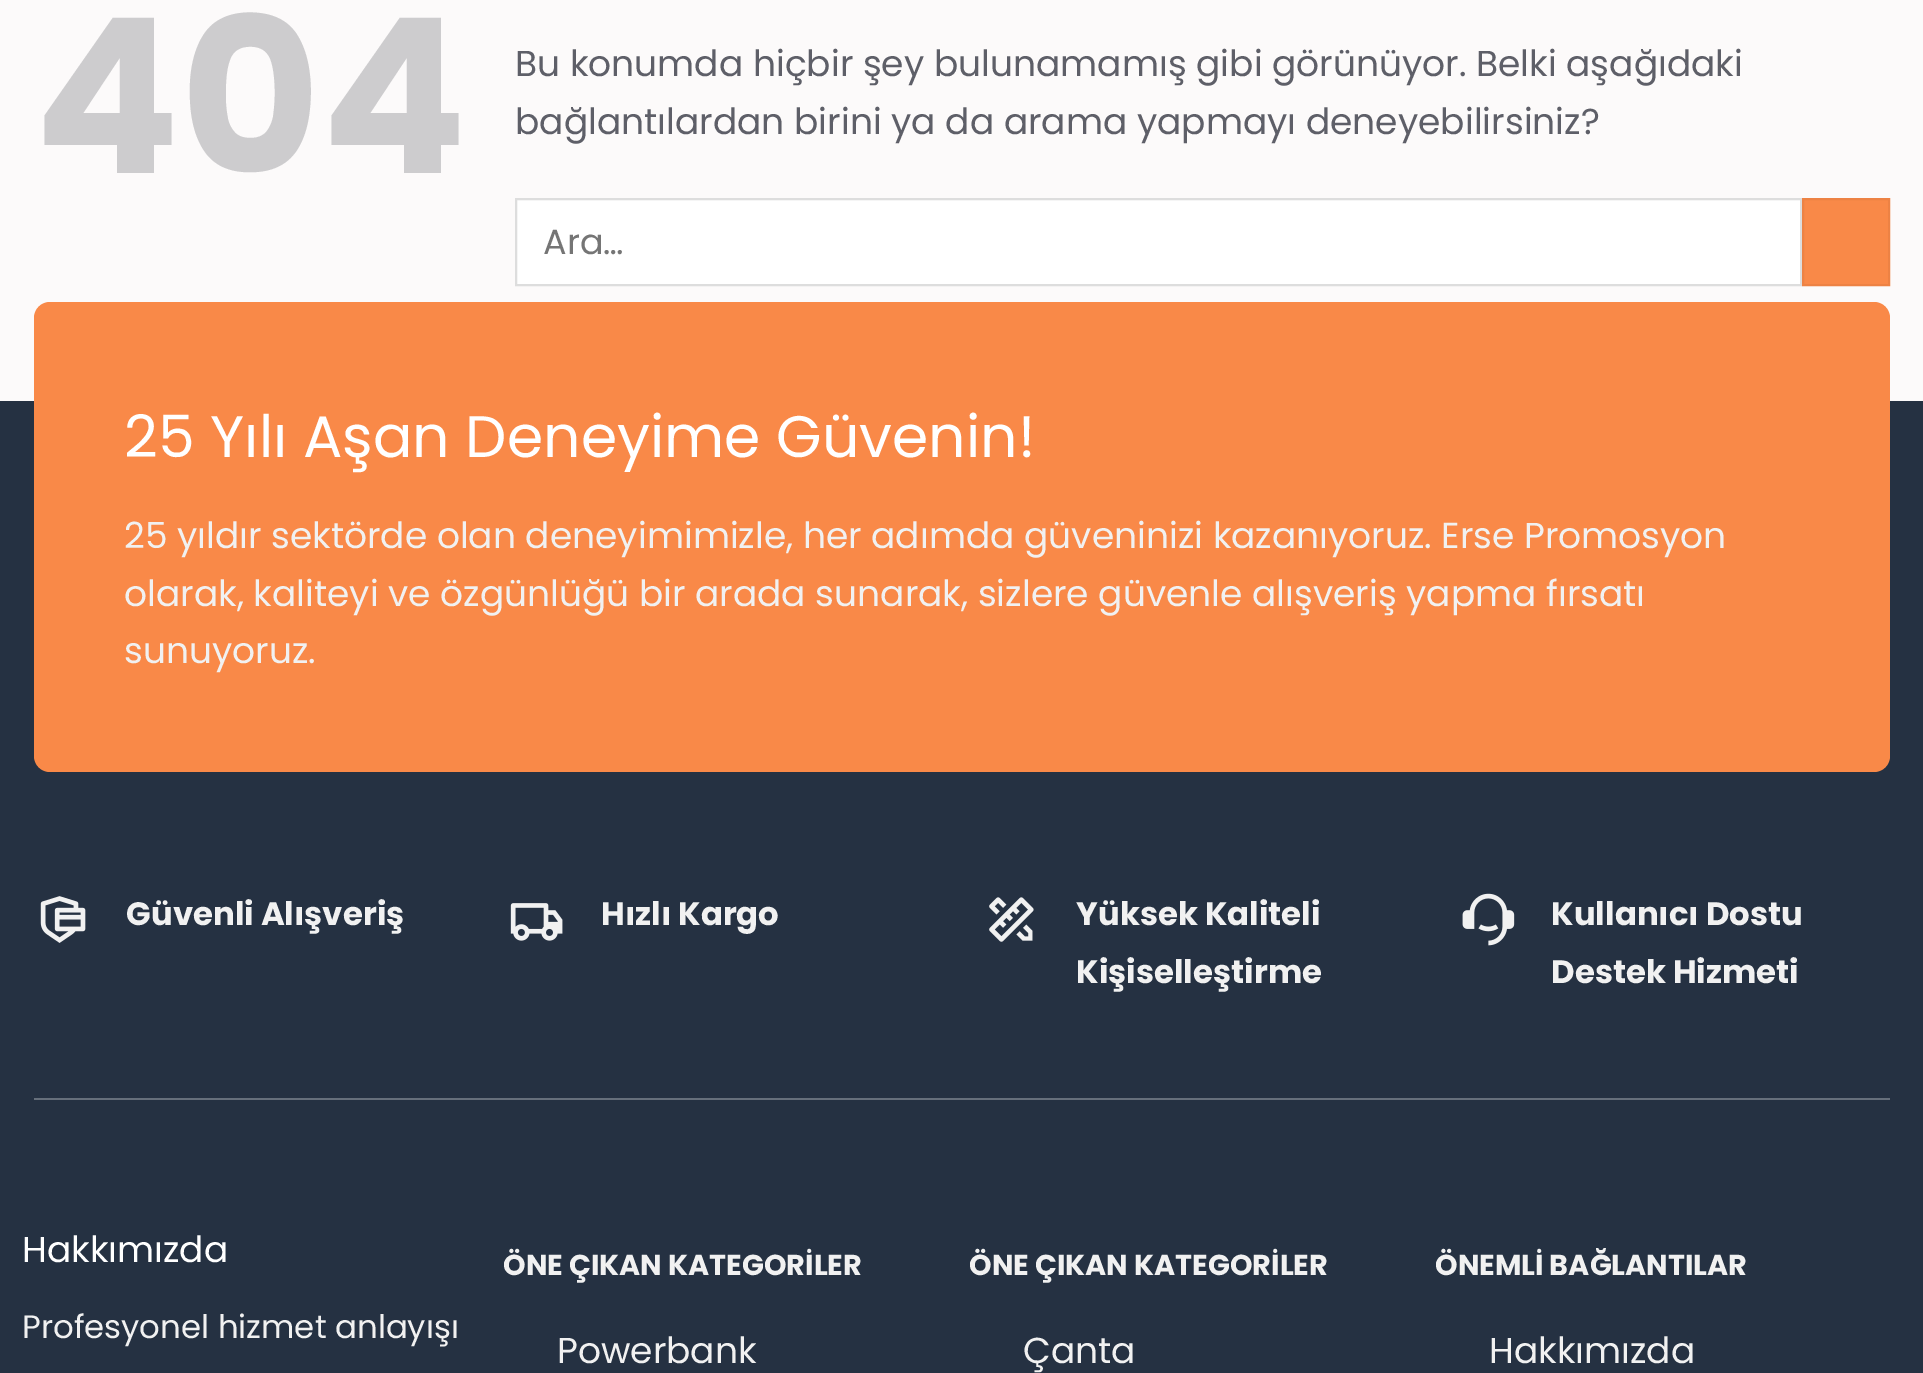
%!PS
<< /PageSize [1923 1373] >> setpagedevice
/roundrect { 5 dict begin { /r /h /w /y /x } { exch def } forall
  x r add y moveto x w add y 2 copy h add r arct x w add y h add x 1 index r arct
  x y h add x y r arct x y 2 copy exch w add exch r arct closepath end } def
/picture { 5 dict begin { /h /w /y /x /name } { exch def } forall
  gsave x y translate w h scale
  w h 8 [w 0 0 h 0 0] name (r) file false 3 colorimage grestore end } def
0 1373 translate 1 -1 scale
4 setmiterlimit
0.988 0.98 0.98 setrgbcolor
0 0 1923 1373 rectfill
/Poppins-Bold [216 0 0 -216 0 0] selectfont
0.804 0.8 0.808 setrgbcolor
34 173 moveto (404) show
/Poppins-Regular [36 0 0 -36 0 0] selectfont
0.369 0.373 0.408 setrgbcolor
515 76 moveto (Bu konumda hiçbir şey bulunamamış gibi görünüyor. Belki aşağıdaki) show
515 134 moveto (bağlantılardan birini ya da arama yapmayı deneyebilirsiniz?) show
1 setgray
newpath 516 199 moveto 1801 199 lineto 1801 285 lineto 516 285 lineto closepath gsave fill grestore
0.867 setgray
2 setlinewidth
stroke
/Poppins-Regular [35 0 0 -35 0 0] selectfont
0.459 setgray
543 254 moveto (Ara…) show
0.976 0.537 0.282 setrgbcolor
newpath 1803 199 moveto 1889 199 lineto 1889 285 lineto 1803 285 lineto closepath gsave fill grestore
0.929 0.51 0.267 setrgbcolor
stroke
0.145 0.192 0.259 setrgbcolor
0 401 1923 972 rectfill
0.976 0.537 0.282 setrgbcolor
34 302 1856 470 16 roundrect fill
/Poppins-Regular [58.5 0 0 -58.5 0 0] selectfont
1 setgray
124 457 moveto (25 Yılı Aşan Deneyime Güvenin!) show
/Poppins-Regular [36 0 0 -36 0 0] selectfont
0.945 setgray
124 548 moveto (25 yıldır sektörde olan deneyimimizle, her adımda güveninizi kazanıyoruz. Erse Promosyon) show
124 606 moveto (olarak, kaliteyi ve özgünlüğü bir arada sunarak, sizlere güvenle alışveriş yapma fırsatı) show
124 663 moveto (sunuyoruz.) show
(img1.rgb) 40 896 46 47 picture
/Poppins-Bold [32.4 0 0 -32.4 0 0] selectfont
126 925 moveto (Güvenli Alışveriş) show
(img2.rgb) 510 903 53 38 picture
601 925 moveto (Hızlı Kargo) show
(img3.rgb) 989 897 45 45 picture
1076 925 moveto (Yüksek Kaliteli) show
1076 983 moveto (Kişiselleştirme) show
(img4.rgb) 1462 893 53 53 picture
1551 925 moveto (Kullanıcı Dostu) show
1551 983 moveto (Destek Hizmeti) show
0.4 0.435 0.482 setrgbcolor
34 1098 1856 2 rectfill
/Poppins-Regular [36 0 0 -36 0 0] selectfont
1 setgray
22 1262 moveto (Hakkımızda) show
/Poppins-Regular [32.4 0 0 -32.4 0 0] selectfont
0.945 setgray
22 1338 moveto (Profesyonel hizmet anlayışı) show
/Poppins-Bold [28.75 0 0 -28.75 0 0] selectfont
503 1275 moveto (ÖNE ÇIKAN KATEGORİLER) show
/Poppins-Regular [36 0 0 -36 0 0] selectfont
557 1363 moveto (Powerbank) show
/Poppins-Bold [28.75 0 0 -28.75 0 0] selectfont
969 1275 moveto (ÖNE ÇIKAN KATEGORİLER) show
/Poppins-Regular [36 0 0 -36 0 0] selectfont
1023 1363 moveto (Çanta) show
/Poppins-Bold [28.75 0 0 -28.75 0 0] selectfont
1435 1275 moveto (ÖNEMLİ BAĞLANTILAR) show
/Poppins-Regular [36 0 0 -36 0 0] selectfont
1489 1363 moveto (Hakkımızda) show
showpage
